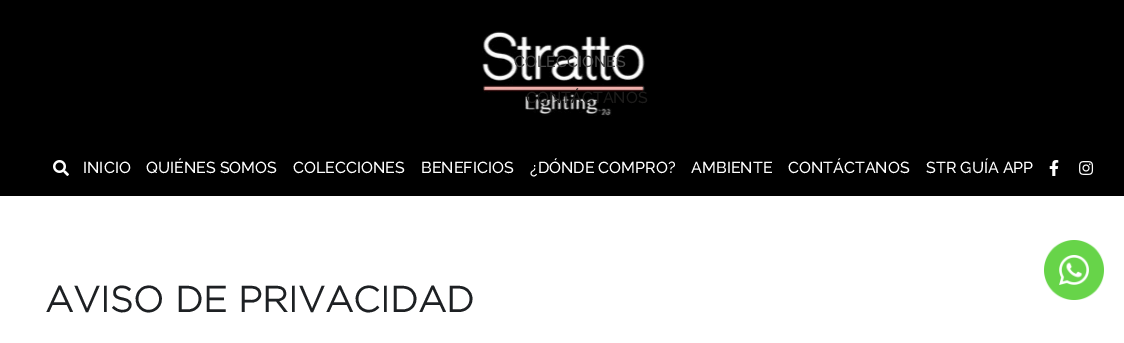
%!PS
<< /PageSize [1124 343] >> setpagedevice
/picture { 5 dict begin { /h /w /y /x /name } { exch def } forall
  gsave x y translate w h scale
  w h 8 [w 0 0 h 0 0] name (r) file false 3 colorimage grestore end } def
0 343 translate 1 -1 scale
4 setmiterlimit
1 setgray
0 0 1124 343 rectfill
0 setgray
0 0 1124 196 rectfill
(img1.rgb) 482 31 163 85 picture
/Raleway-Medium [16 0 0 -16 0 0] selectfont
0.278 setgray
514 67 moveto (COLECCIONES) show
0.114 0.11 0.106 setrgbcolor
526 103 moveto (CONTÁCTANOS) show
(img2.rgb) 53 160 16 16 picture
1 setgray
83 173 moveto (INICIO) show
146 173 moveto (QUIÉNES SOMOS) show
293 173 moveto (COLECCIONES) show
421 173 moveto (BENEFICIOS) show
530 173 moveto (¿DÓNDE COMPRO?) show
691 173 moveto (AMBIENTE) show
788 173 moveto (CONTÁCTANOS) show
926 173 moveto (STR GUÍA APP) show
(img3.rgb) 1049 160 10 16 picture
(img4.rgb) 1079 161 15 14 picture
/Gotham-Bold [36 0 0 -36 0 0] selectfont
0.114 0.125 0.137 setrgbcolor
45 312 moveto (AVISO DE PRIVACIDAD) show
(img5.rgb) 1044 240 60 60 picture
showpage
